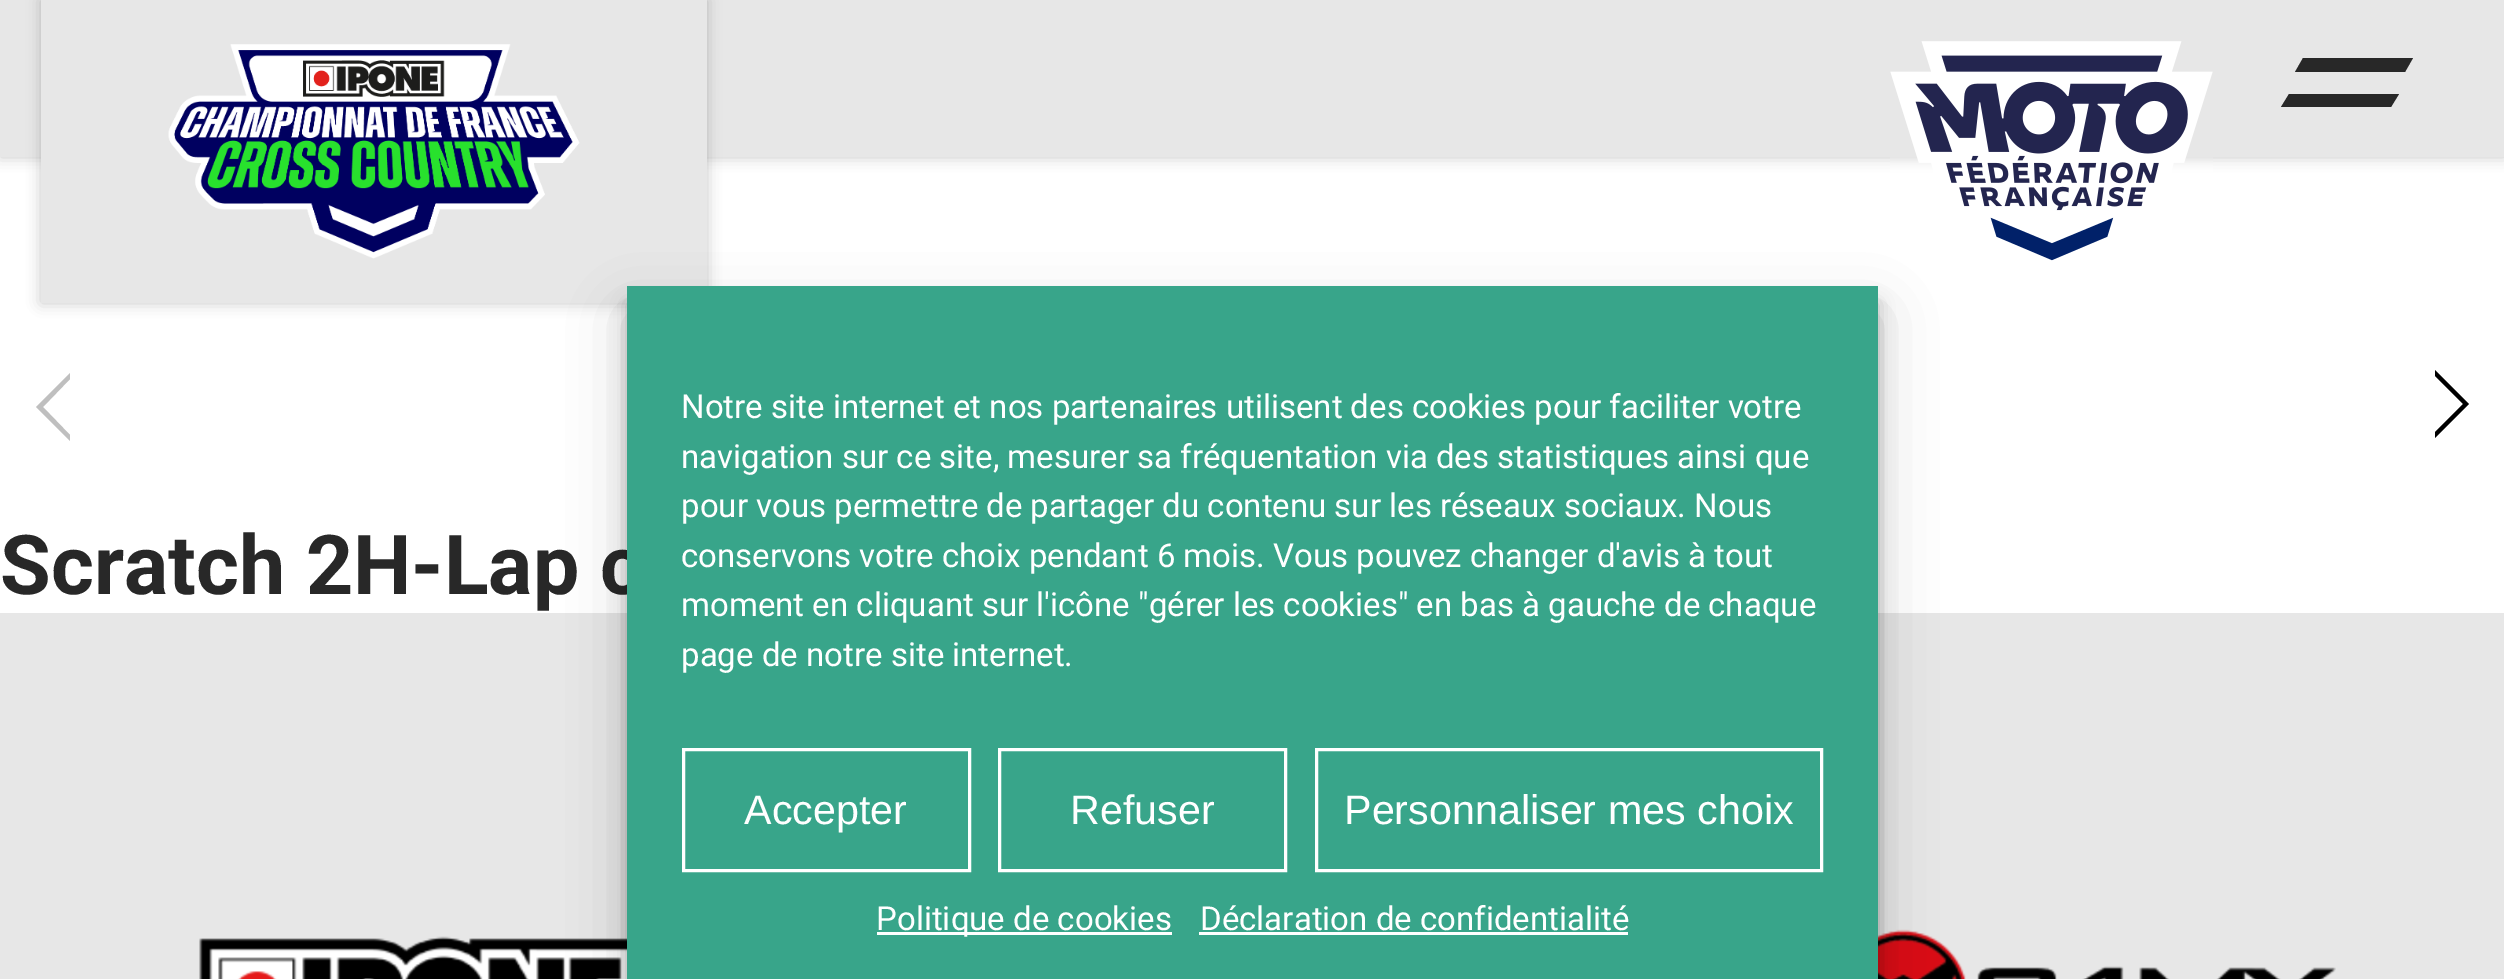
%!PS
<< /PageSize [2504 979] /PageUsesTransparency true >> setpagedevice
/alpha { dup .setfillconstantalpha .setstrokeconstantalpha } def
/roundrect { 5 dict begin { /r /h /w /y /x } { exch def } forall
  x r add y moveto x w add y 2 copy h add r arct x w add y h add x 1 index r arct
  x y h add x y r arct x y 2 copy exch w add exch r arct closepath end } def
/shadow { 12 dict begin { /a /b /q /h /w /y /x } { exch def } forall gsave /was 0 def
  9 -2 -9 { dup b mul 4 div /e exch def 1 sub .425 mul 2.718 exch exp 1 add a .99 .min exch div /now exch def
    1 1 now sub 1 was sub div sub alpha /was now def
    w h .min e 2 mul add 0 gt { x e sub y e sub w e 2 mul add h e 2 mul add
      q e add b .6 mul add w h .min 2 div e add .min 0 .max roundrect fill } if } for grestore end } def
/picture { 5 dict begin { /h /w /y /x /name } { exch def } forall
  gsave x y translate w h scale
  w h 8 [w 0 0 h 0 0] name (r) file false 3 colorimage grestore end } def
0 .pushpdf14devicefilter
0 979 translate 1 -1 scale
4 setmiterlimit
1 setgray
0 0 2504 979 rectfill
0.157 setgray
0 0 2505 157 0 7 0.25 shadow
0.906 setgray
0 0 2504 157 rectfill
0.157 setgray
newpath 2303 58 moveto 2413 58 lineto 2405 72 lineto 2295 72 lineto closepath fill
newpath 2289 94 moveto 2399 94 lineto 2391 107 lineto 2281 107 lineto closepath fill
41 0 666 303 0 7 0.25 shadow
0.906 setgray
41 0 666 303 rectfill
(img1.rgb) 168 44 412 215 picture
(img2.rgb) 1890 41 323 220 picture
0.749 setgray
newpath 70 441 moveto 70 435 lineto 43 407 lineto 70 379 lineto 70 373 lineto 36 407 lineto closepath fill
0 setgray
newpath 2435 370 moveto 2435 376 lineto 2463 404 lineto 2435 432 lineto 2435 438 lineto 2469 404 lineto closepath fill
/Roboto-Bold [82.5 0 0 -82.5 0 0] selectfont
0.157 setgray
0 594 moveto (Scratch 2H-Lap c) show
0.906 setgray
0 613 2504 366 rectfill
(img3.rgb) 199 936 428 43 picture
(img4.rgb) 1878 929 458 50 picture
0 setgray
627 303 1251 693 0 8 0.23 shadow
627 314 1251 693 0 27.5 0.19 shadow
0.22 0.647 0.541 setrgbcolor
627 286 1251 693 rectfill
/Roboto-Regular [33 0 0 -33 0 0] selectfont
1 setgray
681 418 moveto (Notre site internet et nos partenaires utilisent des cookies pour faciliter votre) show
681 468 moveto (navigation sur ce site, mesurer sa fréquentation via des statistiques ainsi que) show
681 517 moveto (pour vous permettre de partager du contenu sur les réseaux sociaux. Nous) show
681 567 moveto (conservons votre choix pendant 6 mois. Vous pouvez changer d'avis à tout) show
681 616 moveto (moment en cliquant sur l'icône "gérer les cookies" en bas à gauche de chaque) show
681 666 moveto (page de notre site internet.) show
3 setlinewidth
683.5 749.5 286 121 rectstroke
/LiberationSans-Regular [41.25 0 0 -41.25 0 0] selectfont
744 824 moveto (Accepter) show
999.5 749.5 286 121 rectstroke
1070 824 moveto (Refuser) show
1316.5 749.5 505 121 rectstroke
1344 824 moveto (Personnaliser mes choix) show
877 932 295 3 rectfill
/Roboto-Regular [33 0 0 -33 0 0] selectfont
876 930 moveto (Politique de cookies) show
1200 930 moveto (Déclaration de confidentialité) show
1199 932 429 3 rectfill
.poppdf14devicefilter showpage
